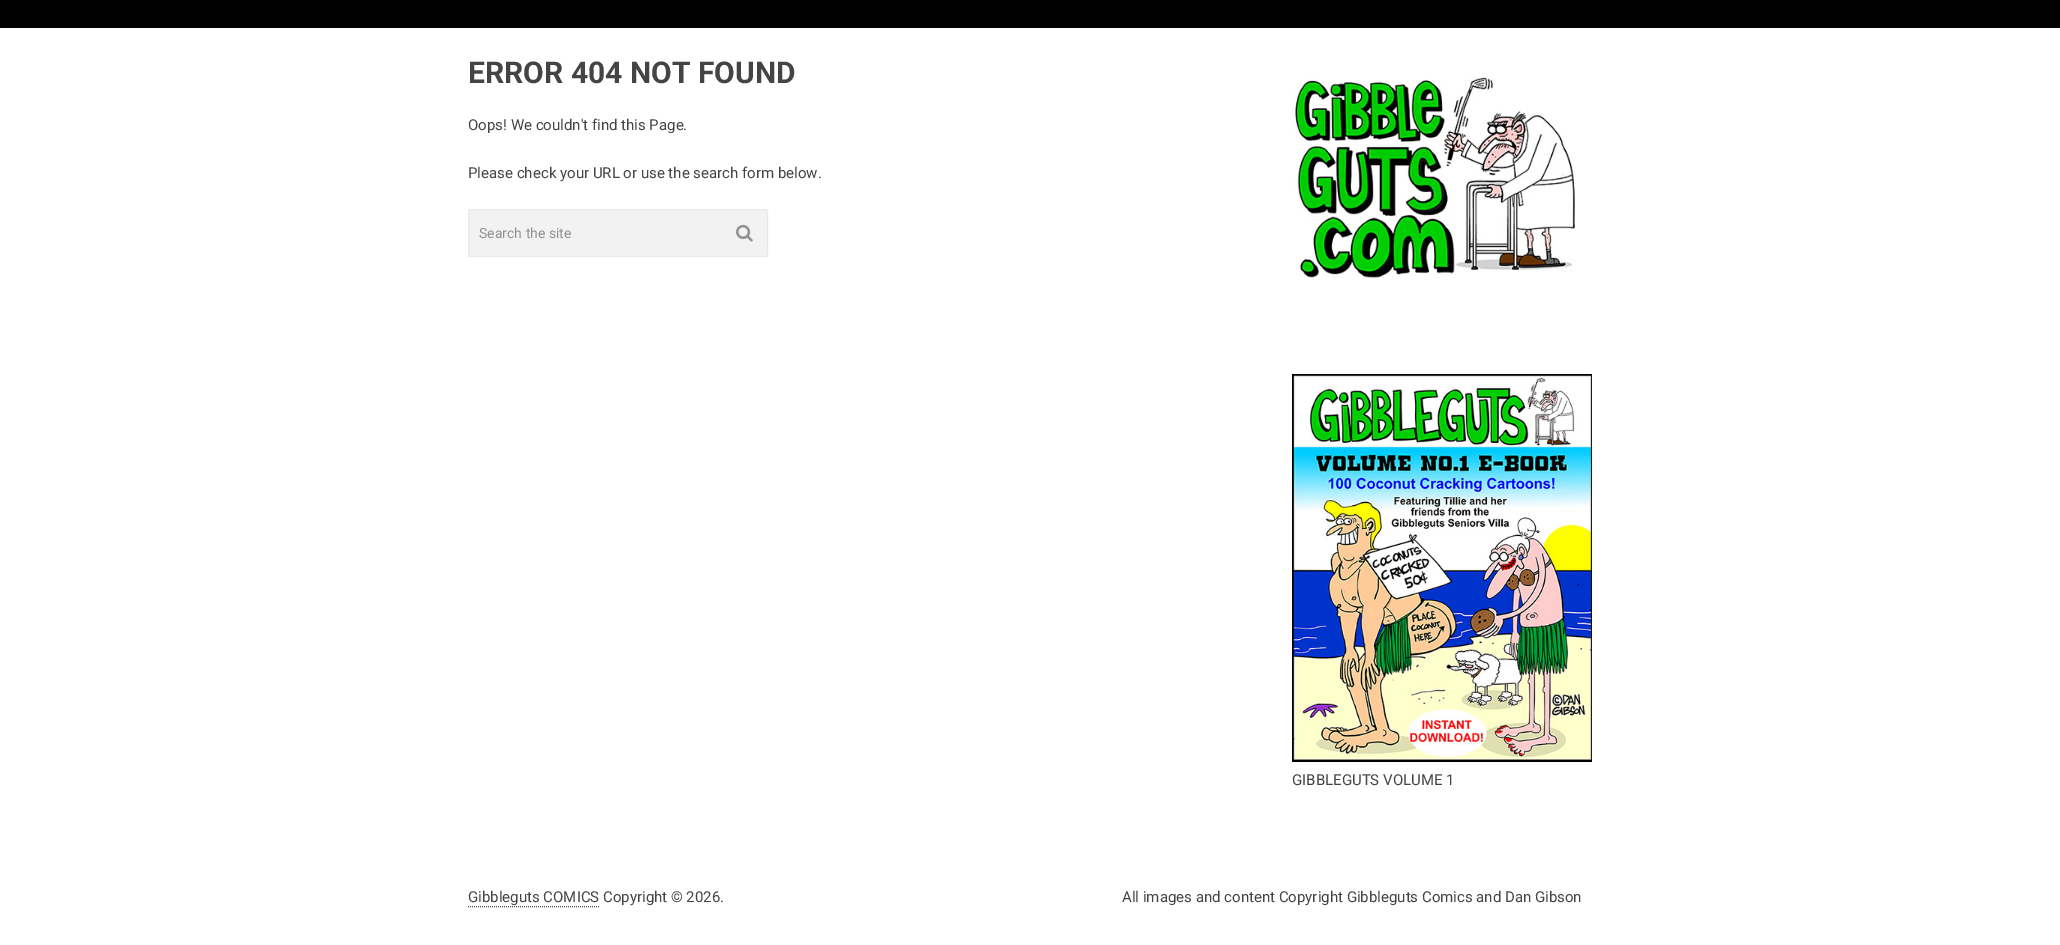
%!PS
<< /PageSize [2060 945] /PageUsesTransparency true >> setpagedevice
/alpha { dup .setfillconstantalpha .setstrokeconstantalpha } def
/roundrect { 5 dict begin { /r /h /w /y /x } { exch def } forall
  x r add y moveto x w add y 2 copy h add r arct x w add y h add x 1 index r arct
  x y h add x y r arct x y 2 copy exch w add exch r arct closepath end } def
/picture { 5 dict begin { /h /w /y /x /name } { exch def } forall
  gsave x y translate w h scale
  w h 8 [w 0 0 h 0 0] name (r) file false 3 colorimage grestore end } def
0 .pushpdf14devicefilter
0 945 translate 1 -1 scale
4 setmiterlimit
1 setgray
0 0 2060 945 rectfill
0 setgray
0 0 2060 28 rectfill
/Roboto-Bold [30 0 0 -30 0 0] selectfont
0.267 setgray
468 83 moveto (ERROR 404 NOT FOUND) show
/Roboto-Regular [15 0 0 -15 0 0] selectfont
468 130 moveto (Oops! We couldn't find this Page.) show
468 178 moveto (Please check your URL or use the search form below.) show
0.949 setgray
468 209 300 48 3 roundrect fill
0.04 alpha
0 setgray
468.5 209.5 299 47 rectstroke
/Roboto-Regular [14 0 0 -14 0 0] selectfont
1 alpha
0.569 setgray
479 238 moveto (Search the site) show
(img1.rgb) 736 224 17 18 picture
(img2.rgb) 1292 77 283 201 picture
(img3.rgb) 1292 374 300 388 picture
/Roboto-Regular [15 0 0 -15 0 0] selectfont
0.267 setgray
1292 785 moveto (GIBBLEGUTS VOLUME 1) show
468 902 moveto (Gibbleguts COMICS Copyright © 2026.) show
[1 1] 0 setdash
newpath 468 906.5 moveto 599 906.5 lineto stroke
1122 902 moveto (All images and content Copyright Gibbleguts Comics and Dan Gibson) show
.poppdf14devicefilter showpage
